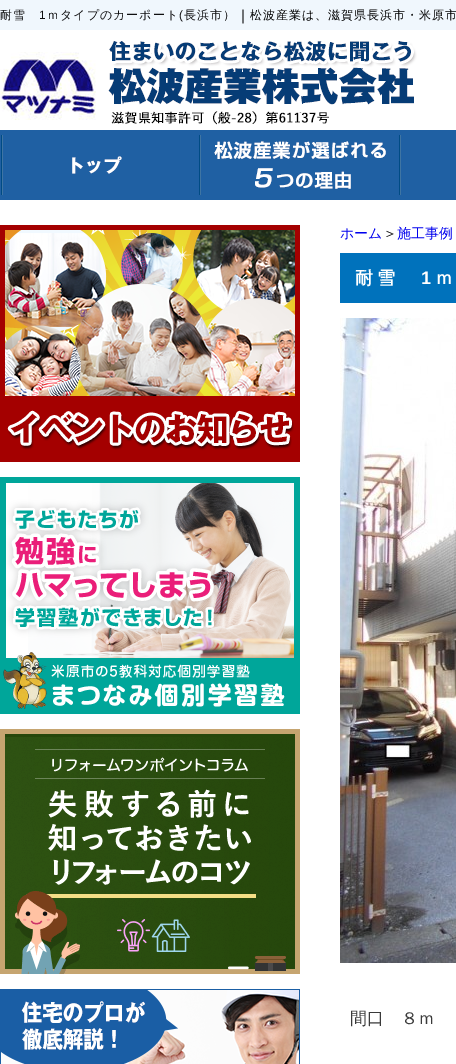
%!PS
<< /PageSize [456 1064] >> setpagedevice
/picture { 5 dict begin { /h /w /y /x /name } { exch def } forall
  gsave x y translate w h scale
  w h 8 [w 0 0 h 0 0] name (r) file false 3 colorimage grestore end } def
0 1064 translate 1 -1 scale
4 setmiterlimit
1 setgray
0 0 456 1064 rectfill
(img1.rgb) 0 0 456 200 picture
/WenQuanYiZenHei-Medium [12 0 0 -12 0 0] selectfont
0.059 0.059 0.063 setrgbcolor
0 19 moveto 1 0 (耐雪) ashow
/LiberationSans-Regular [12 0 0 -12 0 0] selectfont
39 19 moveto 1 0 (1) ashow
/WenQuanYiZenHei-Medium [12 0 0 -12 0 0] selectfont
47 19 moveto 1 0 (ｍタイプのカーポート) ashow
/LiberationSans-Regular [12 0 0 -12 0 0] selectfont
179 19 moveto 1 0 (\() ashow
/WenQuanYiZenHei-Medium [12 0 0 -12 0 0] selectfont
184 19 moveto 1 0 (長浜市）) ashow
/WenQuanYiZenHei-Medium [14 0 0 -14 0 0] selectfont
0 setgray
236 20 moveto 1 0 (｜) ashow
/WenQuanYiZenHei-Medium [12 0 0 -12 0 0] selectfont
250 19 moveto 1 0 (松波産業は、滋賀県長浜市・米原市) ashow
(img2.rgb) 0 41 417 84 picture
(img3.rgb) 1 135 199 60 picture
(img4.rgb) 200 135 200 60 picture
0.247 0.459 0.639 setrgbcolor
400 135 1 60 rectfill
(img5.rgb) 0 225 300 237 picture
(img6.rgb) 0 477 300 237 picture
(img7.rgb) 0 729 300 245 picture
(img8.rgb) 0 989 300 75 picture
/WenQuanYiZenHei-Medium [14 0 0 -14 0 0] selectfont
0 0 0.933 setrgbcolor
340 238 moveto (ホーム) show
0 setgray
383 238 moveto (＞) show
0 0 0.933 setrgbcolor
397 238 moveto (施工事例) show
0 0.447 0.737 setrgbcolor
340 253 116 50 rectfill
/WenQuanYiZenHei-Bold [18 0 0 -18 0 0] selectfont
1 setgray
355 284 moveto 4 0 (耐雪) ashow
/LiberationSans-Bold [18 0 0 -18 0 0] selectfont
421 284 moveto 4 0 (1) ashow
/WenQuanYiZenHei-Bold [18 0 0 -18 0 0] selectfont
435 284 moveto 4 0 (ｍ) ashow
(img9.rgb) 340 318 116 645 picture
/WenQuanYiZenHei-Medium [17 0 0 -17 0 0] selectfont
0.227 setgray
350 1024 moveto (間口　８ｍ) show
showpage
